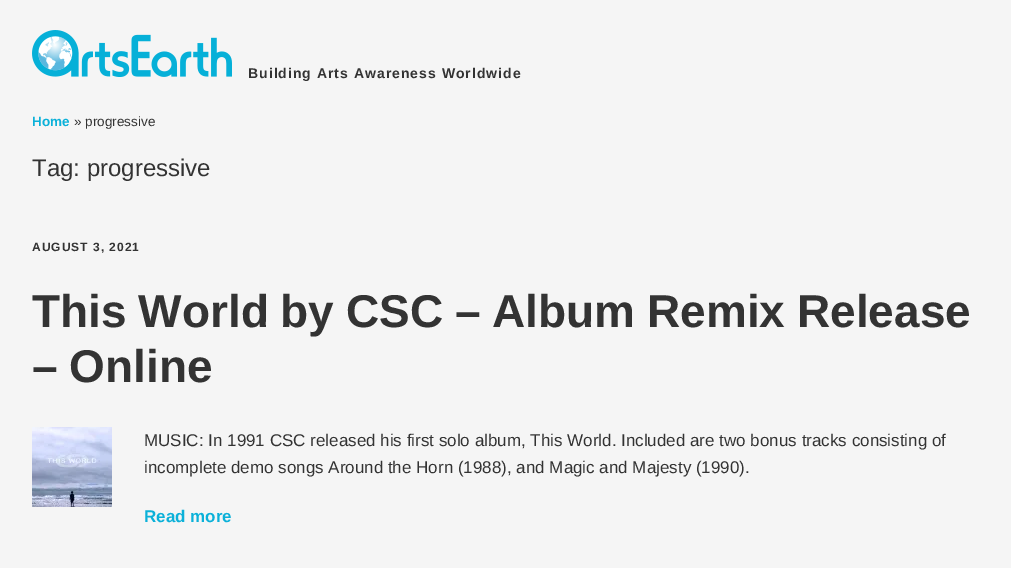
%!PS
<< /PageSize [1011 568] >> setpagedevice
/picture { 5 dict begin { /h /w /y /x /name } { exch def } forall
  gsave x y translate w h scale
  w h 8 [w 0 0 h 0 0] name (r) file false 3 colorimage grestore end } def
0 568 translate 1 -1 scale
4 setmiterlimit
0.961 setgray
0 0 1011 568 rectfill
(img1.rgb) 32 30 200 47 picture
/LiberationSans-Bold [14 0 0 -14 0 0] selectfont
0.2 setgray
248 78 moveto 1 0 (Building Arts Awareness Worldwide) ashow
/LiberationSans-Bold [13.5 0 0 -13.5 0 0] selectfont
0.043 0.694 0.851 setrgbcolor
32 126 moveto (Home) show
/LiberationSans-Regular [13.5 0 0 -13.5 0 0] selectfont
0.2 setgray
74 126 moveto (» progressive) show
/LiberationSans-Regular [24 0 0 -24 0 0] selectfont
32 176 moveto (Tag: progressive) show
/LiberationSans-Bold [12 0 0 -12 0 0] selectfont
32 251 moveto 1 0 (AUGUST 3, 2021) ashow
/LiberationSans-Bold [46 0 0 -46 0 0] selectfont
32 327 moveto -1 0 32 (This World by CSC – Album Remix Release) widthshow
32 382 moveto -1 0 32 (– Online) widthshow
(img2.rgb) 32 427 80 80 picture
/LiberationSans-Regular [17 0 0 -17 0 0] selectfont
144 446 moveto (MUSIC: In 1991 CSC released his first solo album, This World. Included are two bonus tracks consisting of) show
144 473 moveto (incomplete demo songs Around the Horn \(1988\), and Magic and Majesty \(1990\).) show
/LiberationSans-Bold [17 0 0 -17 0 0] selectfont
0.043 0.694 0.851 setrgbcolor
144 522 moveto (Read more) show
showpage
